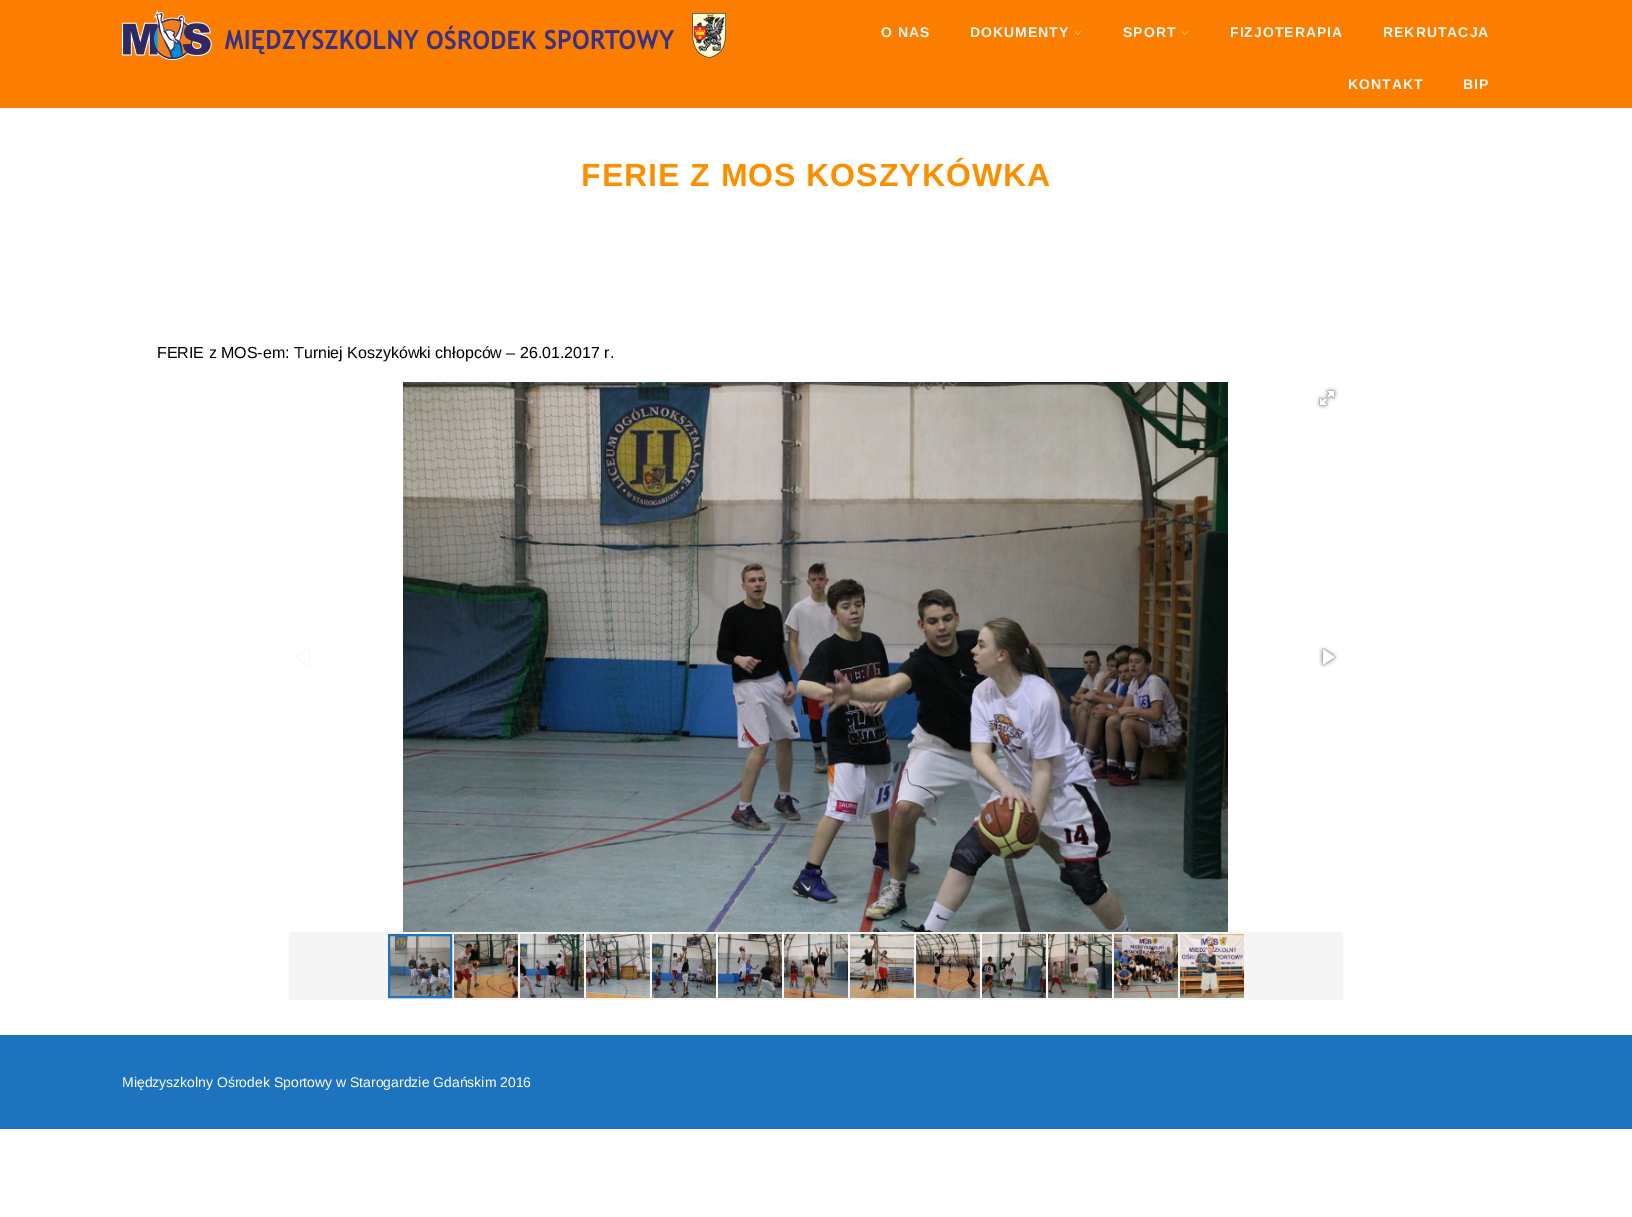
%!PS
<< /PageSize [1632 1217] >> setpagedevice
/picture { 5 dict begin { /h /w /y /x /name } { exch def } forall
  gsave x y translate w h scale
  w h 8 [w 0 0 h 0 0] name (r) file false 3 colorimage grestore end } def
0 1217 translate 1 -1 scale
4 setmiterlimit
1 setgray
0 0 1632 1217 rectfill
0.988 0.494 0 setrgbcolor
0 0 1632 108 rectfill
(img1.rgb) 122 10 604 50 picture
/LiberationSans-Bold [14 0 0 -14 0 0] selectfont
0.976 setgray
881 37 moveto 1 0 (O NAS) ashow
970 37 moveto 1 0 (DOKUMENTY) ashow
(img2.rgb) 1074 31 8 4 picture
1123 37 moveto 1 0 (SPORT) ashow
(img2.rgb) 1181 31 8 4 picture
1230 37 moveto 1 0 (FIZJOTERAPIA) ashow
1383 37 moveto 1 0 (REKRUTACJA) ashow
1348 89 moveto 1 0 (KONTAKT) ashow
1463 89 moveto 1 0 (BIP) ashow
/LiberationSans-Bold [32 0 0 -32 0 0] selectfont
0.988 0.561 0 setrgbcolor
581 186 moveto 1 0 (FERIE Z MOS KOSZYKÓWKA) ashow
/LiberationSans-Regular [16 0 0 -16 0 0] selectfont
0 setgray
157 358 moveto (FERIE z MOS-em: Turniej Koszykówki chłopców – 26.01.2017 r.) show
(img3.rgb) 403 382 825 550 picture
(img4.rgb) 1316 387 22 22 picture
(img5.rgb) 296 648 14 18 picture
(img6.rgb) 1318 646 20 22 picture
0.961 setgray
289 932 1054 68 rectfill
(img19.rgb) 390 936 60 60 picture
0.118 0.451 0.745 setrgbcolor
2 setlinewidth
389 935 62 62 rectstroke
(img7.rgb) 454 934 64 64 picture
(img8.rgb) 520 934 64 64 picture
(img9.rgb) 586 934 64 64 picture
(img10.rgb) 652 934 64 64 picture
(img11.rgb) 718 934 64 64 picture
(img12.rgb) 784 934 64 64 picture
(img13.rgb) 850 934 64 64 picture
(img14.rgb) 916 934 64 64 picture
(img15.rgb) 982 934 64 64 picture
(img16.rgb) 1048 934 64 64 picture
(img17.rgb) 1114 934 64 64 picture
(img18.rgb) 1180 934 64 64 picture
0 1035 1632 94 rectfill
/LiberationSans-Regular [14 0 0 -14 0 0] selectfont
1 setgray
122 1087 moveto (Międzyszkolny Ośrodek Sportowy w Starogardzie Gdańskim 2016) show
showpage
